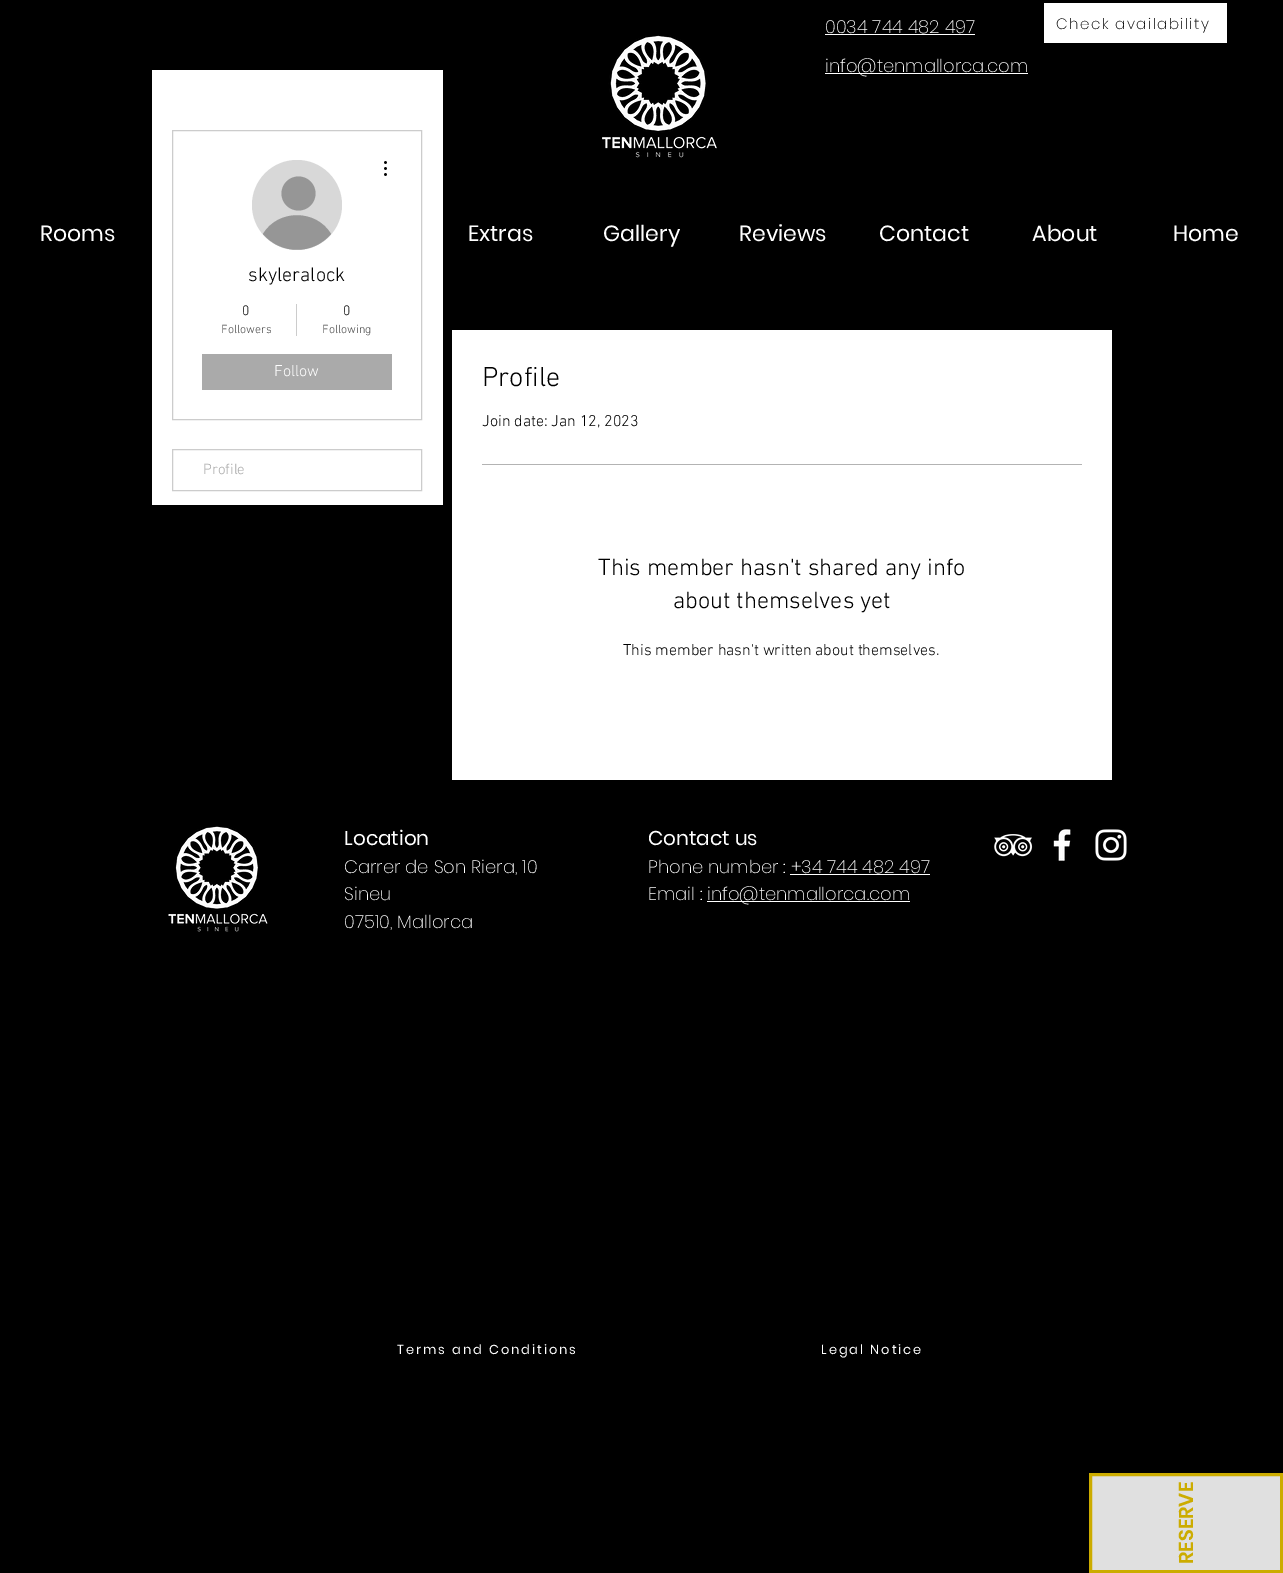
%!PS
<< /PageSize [1283 1573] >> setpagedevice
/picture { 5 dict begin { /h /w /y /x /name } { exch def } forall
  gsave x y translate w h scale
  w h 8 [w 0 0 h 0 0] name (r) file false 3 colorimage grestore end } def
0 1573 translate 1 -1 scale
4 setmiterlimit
0 setgray
0 0 1283 1573 rectfill
/Poppins-ExtraLight [18 0 0 -18 0 0] selectfont
1 setgray
825 33 moveto (0034 744 482 497) show
825 34 150 1 rectfill
1044 3 183 40 rectfill
/Poppins-ExtraLight [15 0 0 -15 0 0] selectfont
0 setgray
1056 29 moveto 1.5 0 (Check availability) ashow
(img1.rgb) 602 35 115 123 picture
1 setgray
825 73 203 1 rectfill
/Poppins-ExtraLight [18 0 0 -18 0 0] selectfont
825 72 moveto (info@tenmallorca.com) show
/Poppins-Regular [22 0 0 -22 0 0] selectfont
40 241 moveto (Rooms) show
468 241 moveto (Extras) show
603 241 moveto (Gallery) show
739 241 moveto (Reviews) show
879 241 moveto (Contact) show
1032 241 moveto (About) show
1173 241 moveto (Home) show
152 70 291 435 rectfill
0.8 setgray
172.5 130.5 249 289 rectstroke
0.847 setgray
newpath 297 205 45 0 360 arc closepath fill
0.588 setgray
newpath 298.5 193.5 17 0 360 arc closepath fill
newpath 331 234 moveto 313 255 281 255 263 234 curveto 278 209 316 209 331 234 curveto closepath fill
(img2.rgb) 384 161 3 15 picture
/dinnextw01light-Light [20 0 0 -20 0 0] selectfont
0 setgray
248 281 moveto (skyleralock) show
/dinnextw01light-Light [14 0 0 -14 0 0] selectfont
242 315 moveto (0) show
/dinnextw01light-Light [12 0 0 -12 0 0] selectfont
0.302 setgray
221 333 moveto (Followers) show
0.8 setgray
296 304 1 32 rectfill
/dinnextw01light-Light [14 0 0 -14 0 0] selectfont
0 setgray
343 315 moveto (0) show
/dinnextw01light-Light [12 0 0 -12 0 0] selectfont
0.302 setgray
322 333 moveto (Following) show
0.667 setgray
202 354 190 36 rectfill
/dinnextw01light-Light [16 0 0 -16 0 0] selectfont
1 setgray
274 376 moveto (Follow) show
0.8 setgray
172.5 449.5 249 41 rectstroke
/dinnextw01light-Light [15 0 0 -15 0 0] selectfont
0.667 setgray
203 474 moveto (Profile) show
1 setgray
452 330 660 450 rectfill
/dinnextw01light-Light [28 0 0 -28 0 0] selectfont
0 setgray
482 386 moveto (Profile) show
/dinnextw01light-Light [16 0 0 -16 0 0] selectfont
482 426 moveto (Join date: Jan 12, 2023) show
0.702 setgray
482 464 600 1 rectfill
/dinnextw01light-Light [24 0 0 -24 0 0] selectfont
0 setgray
598 575 moveto (This member hasn't shared any info) show
673 608 moveto (about themselves yet) show
/dinnextw01light-Light [16 0 0 -16 0 0] selectfont
623 655 moveto (This member hasn't written about themselves.) show
(img3.rgb) 168 826 100 106 picture
/Poppins-Regular [20 0 0 -20 0 0] selectfont
1 setgray
344 845 moveto (Location) show
/Poppins-ExtraLight [18 0 0 -18 0 0] selectfont
344 873 moveto (Carrer de Son Riera, 10) show
344 900 moveto (Sineu) show
344 928 moveto (07510, Mallorca) show
/Poppins-Regular [20 0 0 -20 0 0] selectfont
648 845 moveto (Contact us) show
/Poppins-ExtraLight [18 0 0 -18 0 0] selectfont
648 873 moveto (Phone number : +34 744 482 497) show
790 874 140 1 rectfill
648 900 moveto (Email :) show
707 901 203 1 rectfill
707 900 moveto (info@tenmallorca.com) show
(img4.rgb) 994 834 39 23 picture
(img5.rgb) 1053 829 18 32 picture
(img6.rgb) 1095 829 32 32 picture
/Poppins-Regular [13 0 0 -13 0 0] selectfont
397 1354 moveto 1.95 0 (Terms and Conditions) ashow
821 1354 moveto 1.95 0 (Legal Notice) ashow
0.878 setgray
1092 1476 188 94 rectfill
0.8 0.675 0 setrgbcolor
3 setlinewidth
newpath 1090.5 1571.5 moveto 1090.5 1474.5 lineto 1281.5 1474.5 lineto 1281.5 1571.5 lineto closepath stroke
/Poppins-SemiBold [20 0 0 -20 0 0] selectfont
gsave 1193 1564 translate -90 rotate 0 0 moveto (RESERVE) show grestore
showpage
